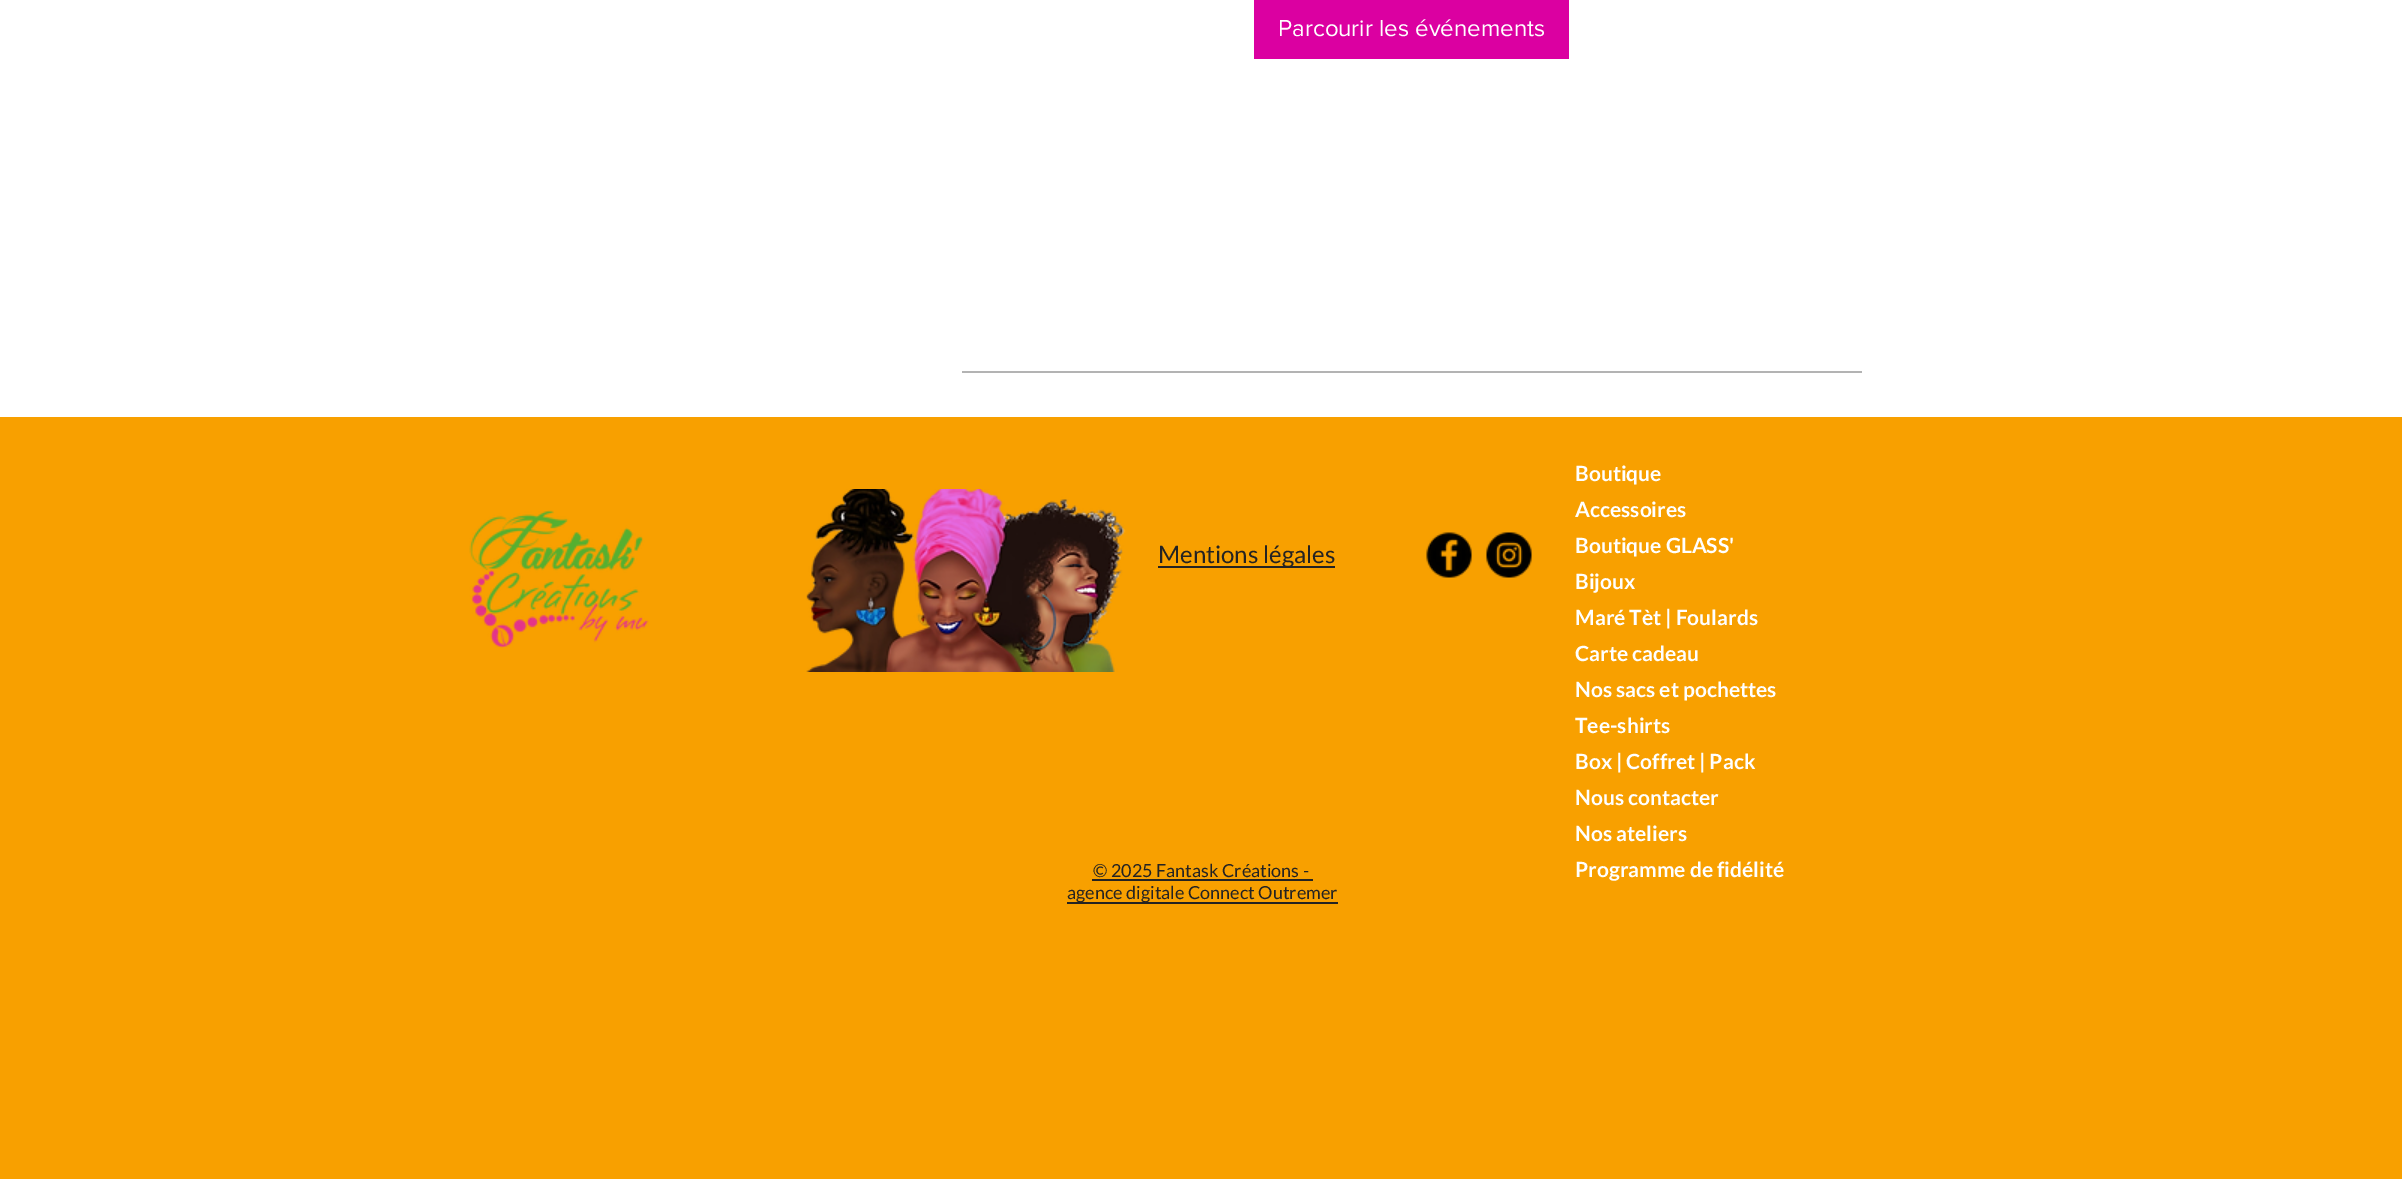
%!PS
<< /PageSize [2402 1179] >> setpagedevice
/picture { 5 dict begin { /h /w /y /x /name } { exch def } forall
  gsave x y translate w h scale
  w h 8 [w 0 0 h 0 0] name (r) file false 3 colorimage grestore end } def
0 1179 translate 1 -1 scale
4 setmiterlimit
1 setgray
0 0 2402 1179 rectfill
0.859 0 0.631 setrgbcolor
1254 0 315 59 rectfill
/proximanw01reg-Regular [24 0 0 -24 0 0] selectfont
1 setgray
1278 36 moveto (Parcourir les événements) show
0.702 setgray
962 371 900 2 rectfill
0.973 0.627 0 setrgbcolor
0 417 2402 762 rectfill
(img1.rgb) 469 510 180 138 picture
(img2.rgb) 806 489 320 183 picture
0.141 0.137 0.137 setrgbcolor
1158 566 177 2 rectfill
/Lato-Regular [24 0 0 -24 0 0] selectfont
1158 563 moveto (Mentions légales) show
(img3.rgb) 1426 532 46 46 picture
(img4.rgb) 1486 532 46 46 picture
/Lato-Bold [21 0 0 -21 0 0] selectfont
1 setgray
1575 481 moveto (Boutique) show
1575 517 moveto (Accessoires) show
1575 553 moveto (Boutique GLASS') show
1575 589 moveto (Bijoux) show
1575 625 moveto (Maré Tèt | Foulards) show
1575 661 moveto (Carte cadeau) show
1575 697 moveto (Nos sacs et pochettes) show
1575 733 moveto (Tee-shirts) show
1575 769 moveto (Box | Coffret | Pack) show
1575 805 moveto (Nous contacter) show
1575 841 moveto (Nos ateliers) show
1575 877 moveto (Programme de fidélité) show
/Lato-Regular [18 0 0 -18 0 0] selectfont
0.141 0.137 0.137 setrgbcolor
1093 877 moveto (© 2025 Fantask Créations -) show
1092 879 221 2 rectfill
1067 902 271 2 rectfill
1067 899 moveto (agence digitale Connect Outremer) show
showpage
